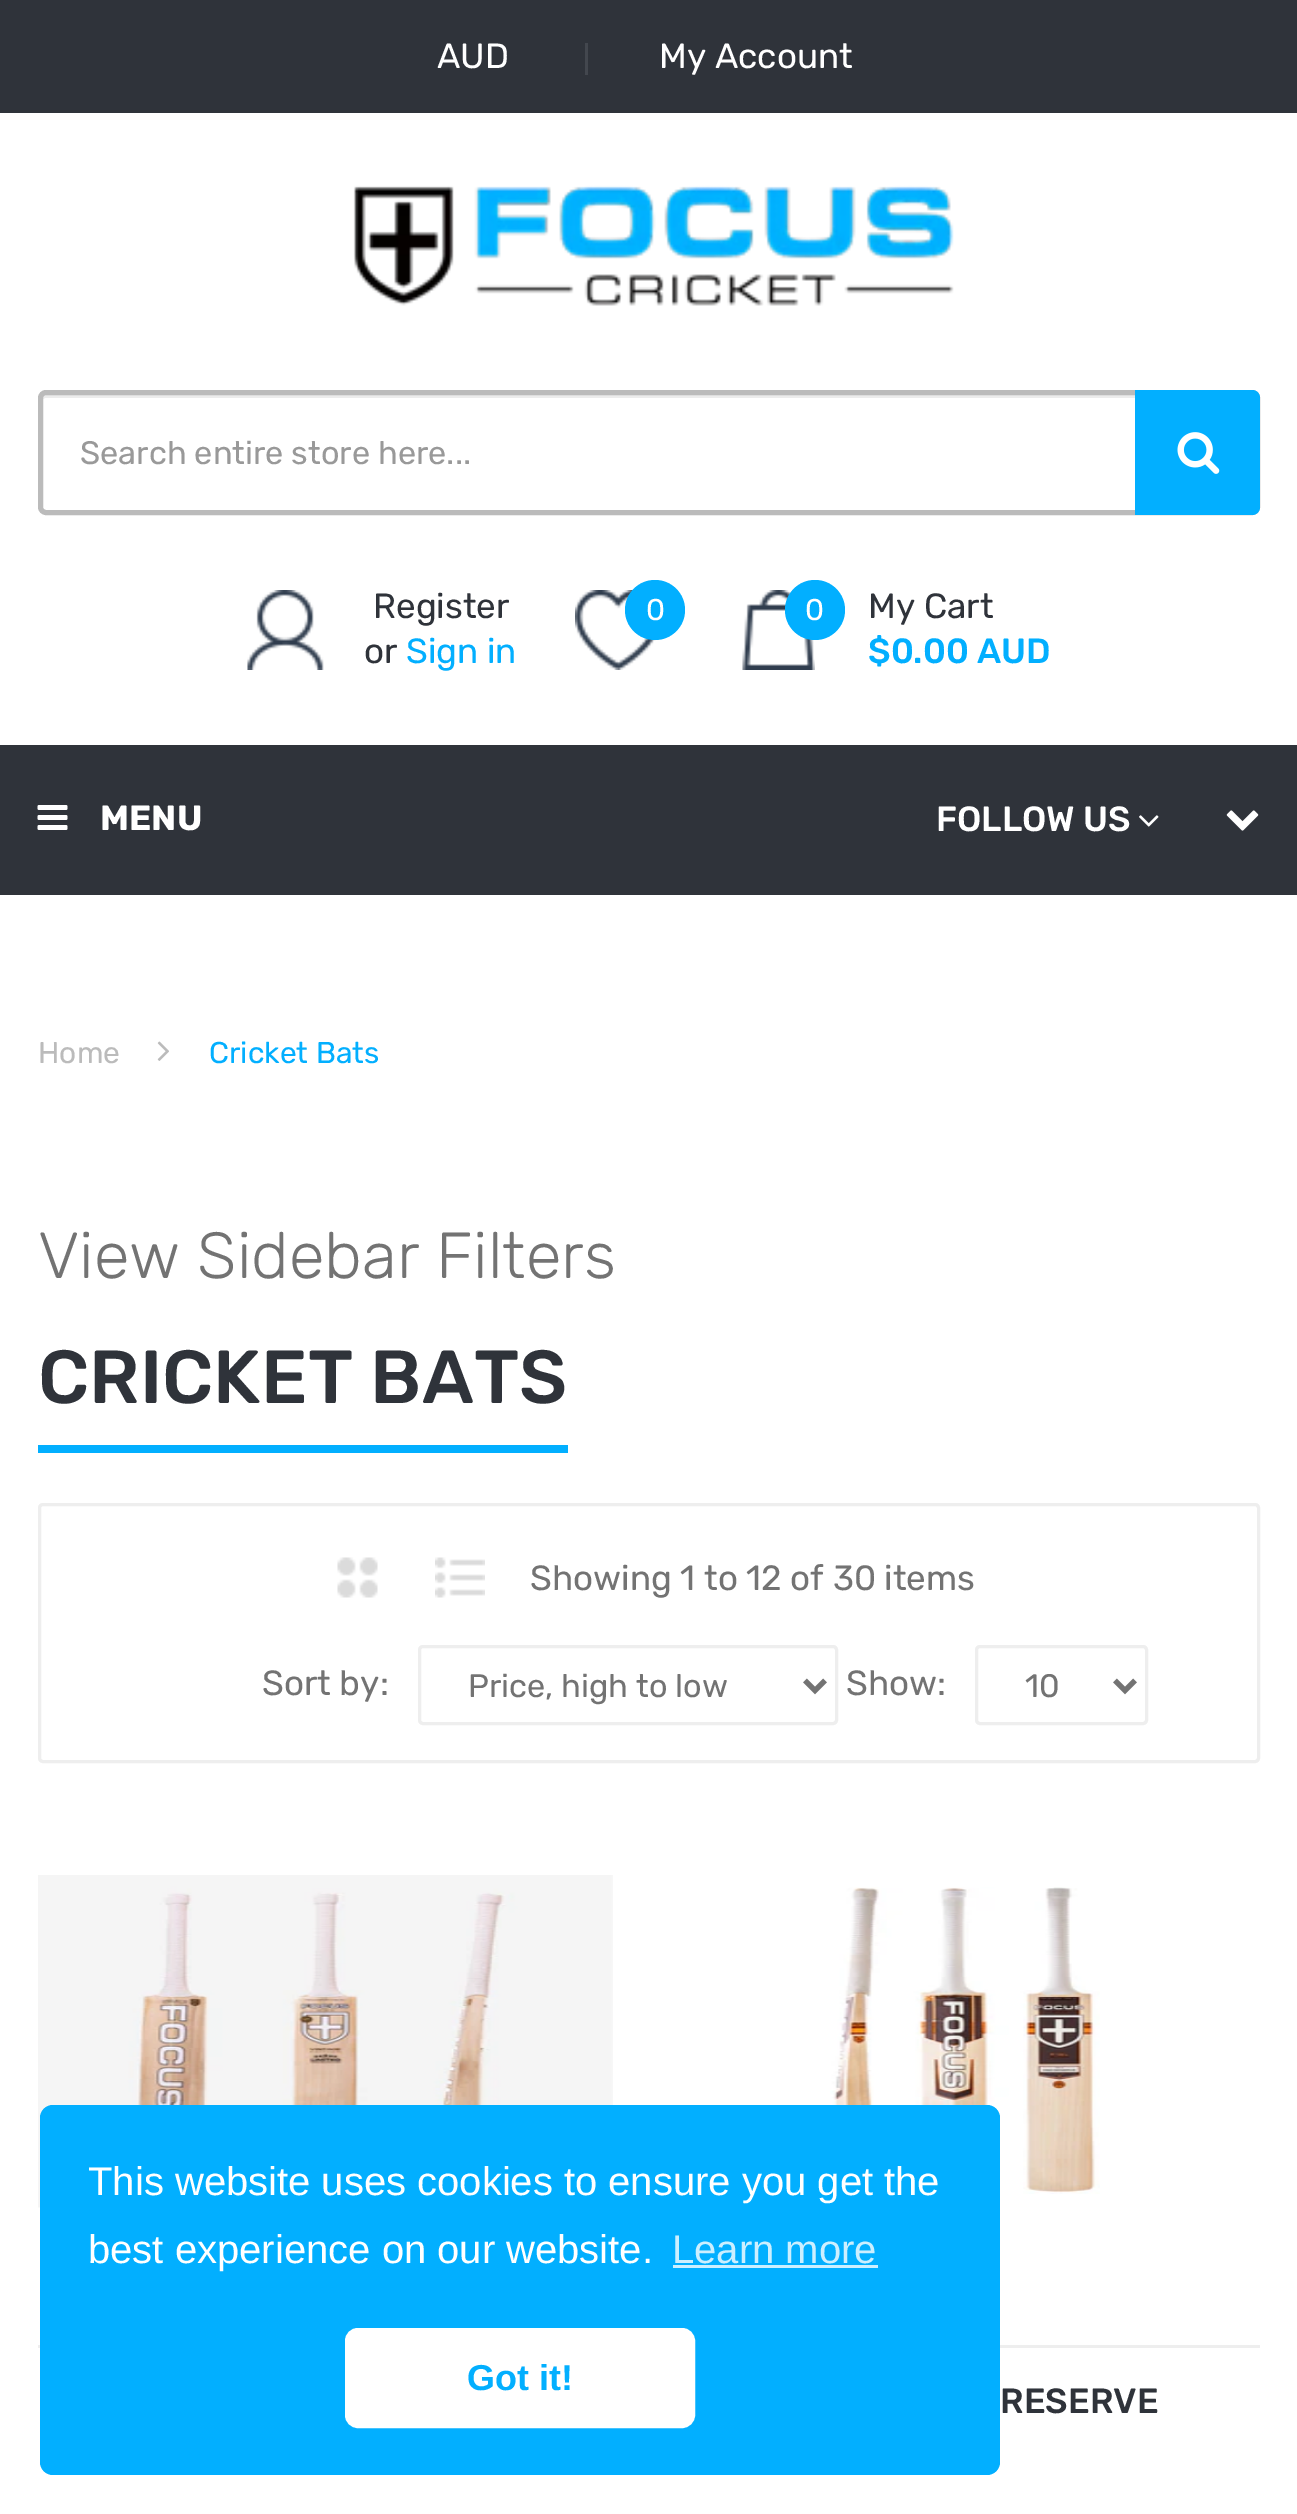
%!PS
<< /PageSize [1297 2514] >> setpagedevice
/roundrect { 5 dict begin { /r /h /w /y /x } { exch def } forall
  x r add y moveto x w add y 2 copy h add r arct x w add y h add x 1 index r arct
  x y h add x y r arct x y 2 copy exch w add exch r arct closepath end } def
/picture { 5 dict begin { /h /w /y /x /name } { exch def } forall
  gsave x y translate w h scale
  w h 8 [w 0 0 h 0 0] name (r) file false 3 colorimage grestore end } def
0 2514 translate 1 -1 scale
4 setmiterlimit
1 setgray
0 0 1297 2514 rectfill
0.184 0.2 0.227 setrgbcolor
0 0 1297 113 rectfill
/Rubik-Regular [35 0 0 -35 0 0] selectfont
1 setgray
437 68 moveto (AUD) show
0.263 0.278 0.306 setrgbcolor
585 43 3 32 rectfill
1 setgray
659 68 moveto (My Account) show
(img1.rgb) 353 185 601 121 picture
0.925 setgray
newpath 45 398 moveto 1252 398 lineto 1254 398 1255 399 1255 400 curveto 1255 398 lineto 1255 396 1254 395 1252 395 curveto 46 395 lineto 44 395 43 396 43 398 curveto 43 399 lineto closepath fill
0.733 setgray
5 setlinewidth
40.5 392.5 1217 120 5.5 roundrect stroke
/Rubik-Regular [32.5 0 0 -32.5 0 0] selectfont
0.6 setgray
80 464 moveto (Search entire store here...) show
0.008 0.686 1 setrgbcolor
newpath 1135 390 moveto 1252 390 lineto 1256.5 390 1260 393.5 1260 398 curveto 1260 507 lineto 1260 511.5 1256.5 515 1252 515 curveto 1135 515 lineto closepath fill
(img2.rgb) 1177 432 43 42 picture
(img3.rgb) 247 590 77 80 picture
/Rubik-Regular [35 0 0 -35 0 0] selectfont
0.184 0.2 0.227 setrgbcolor
373 618 moveto (Register) show
364 663 moveto (or) show
0.008 0.686 1 setrgbcolor
406 663 moveto (Sign in) show
(img4.rgb) 575 590 81 80 picture
newpath 655 610 30 0 360 arc closepath fill
/Rubik-Regular [30 0 0 -30 0 0] selectfont
1 setgray
646 620 moveto (0) show
(img5.rgb) 742 590 73 80 picture
/Rubik-Regular [35 0 0 -35 0 0] selectfont
0.184 0.2 0.227 setrgbcolor
868 618 moveto (My Cart) show
/Rubik-Medium [35 0 0 -35 0 0] selectfont
0.008 0.686 1 setrgbcolor
868 663 moveto ($0.00 AUD) show
newpath 815 610 30 0 360 arc closepath fill
/Rubik-Regular [30 0 0 -30 0 0] selectfont
1 setgray
805 620 moveto (0) show
0.184 0.2 0.227 setrgbcolor
0 745 1297 150 rectfill
(img6.rgb) 37 805 31 25 picture
/Rubik-Bold [35 0 0 -35 0 0] selectfont
1 setgray
100 830 moveto (MENU) show
(img7.rgb) 1226 810 33 21 picture
/Rubik-Medium [35 0 0 -35 0 0] selectfont
936 831 moveto (FOLLOW US) show
(img8.rgb) 1139 815 20 12 picture
/Rubik-Regular [30 0 0 -30 0 0] selectfont
0.733 setgray
38 1063 moveto (Home) show
(img9.rgb) 157 1041 12 20 picture
0.008 0.686 1 setrgbcolor
209 1063 moveto (Cricket Bats) show
/Rubik-Light [65 0 0 -65 0 0] selectfont
0.451 setgray
38 1278 moveto (View Sidebar Filters) show
0.008 0.686 1 setrgbcolor
38 1445 530 8 rectfill
/Rubik-Medium [75 0 0 -75 0 0] selectfont
0.184 0.2 0.227 setrgbcolor
38 1403 moveto (CRICKET BATS) show
0.933 setgray
3 setlinewidth
39.5 1504.5 1219 257 3.5 roundrect stroke
(img10.rgb) 337 1557 41 41 picture
(img11.rgb) 435 1557 50 41 picture
/Rubik-Regular [35 0 0 -35 0 0] selectfont
0.451 setgray
530 1590 moveto (Showing 1 to 12 of 30 items) show
262 1695 moveto (Sort by:) show
0.933 setgray
419.5 1646.5 417 77 3.5 roundrect stroke
0.451 setgray
5 setlinewidth
newpath 805 1680.5 moveto 815 1690.5 lineto 825 1680.5 lineto stroke
/Rubik-Regular [32.5 0 0 -32.5 0 0] selectfont
468 1697 moveto (Price, high to low) show
/Rubik-Regular [35 0 0 -35 0 0] selectfont
846 1695 moveto (Show:) show
0.933 setgray
3 setlinewidth
976.5 1646.5 170 77 3.5 roundrect stroke
0.451 setgray
5 setlinewidth
newpath 1115 1680.5 moveto 1125 1690.5 lineto 1135 1680.5 lineto stroke
/Rubik-Regular [32.5 0 0 -32.5 0 0] selectfont
1025 1697 moveto (10) show
(img12.rgb) 38 1875 575 333 picture
0.933 setgray
38 2345 2 3 rectfill
(img13.rgb) 830 1887 270 307 picture
1000 2345 260 3 rectfill
/Rubik-Medium [35 0 0 -35 0 0] selectfont
0.184 0.2 0.227 setrgbcolor
1000 2413 moveto (RESERVE) show
0.008 0.686 1 setrgbcolor
40 2105 960 370 13 roundrect fill
/LiberationSans-Regular [40 0 0 -40 0 0] selectfont
1 setgray
88 2195 moveto (This website uses cookies to ensure you get the) show
88 2263 moveto (best experience on our website.) show
0.8 0.937 1 setrgbcolor
672 2263 moveto (Learn more) show
673 2265 205 3 rectfill
1 setgray
347.5 2330.5 345 95 10.5 roundrect gsave fill grestore
stroke
/LiberationSans-Bold [36 0 0 -36 0 0] selectfont
0.008 0.686 1 setrgbcolor
467 2390 moveto (Got it!) show
showpage
